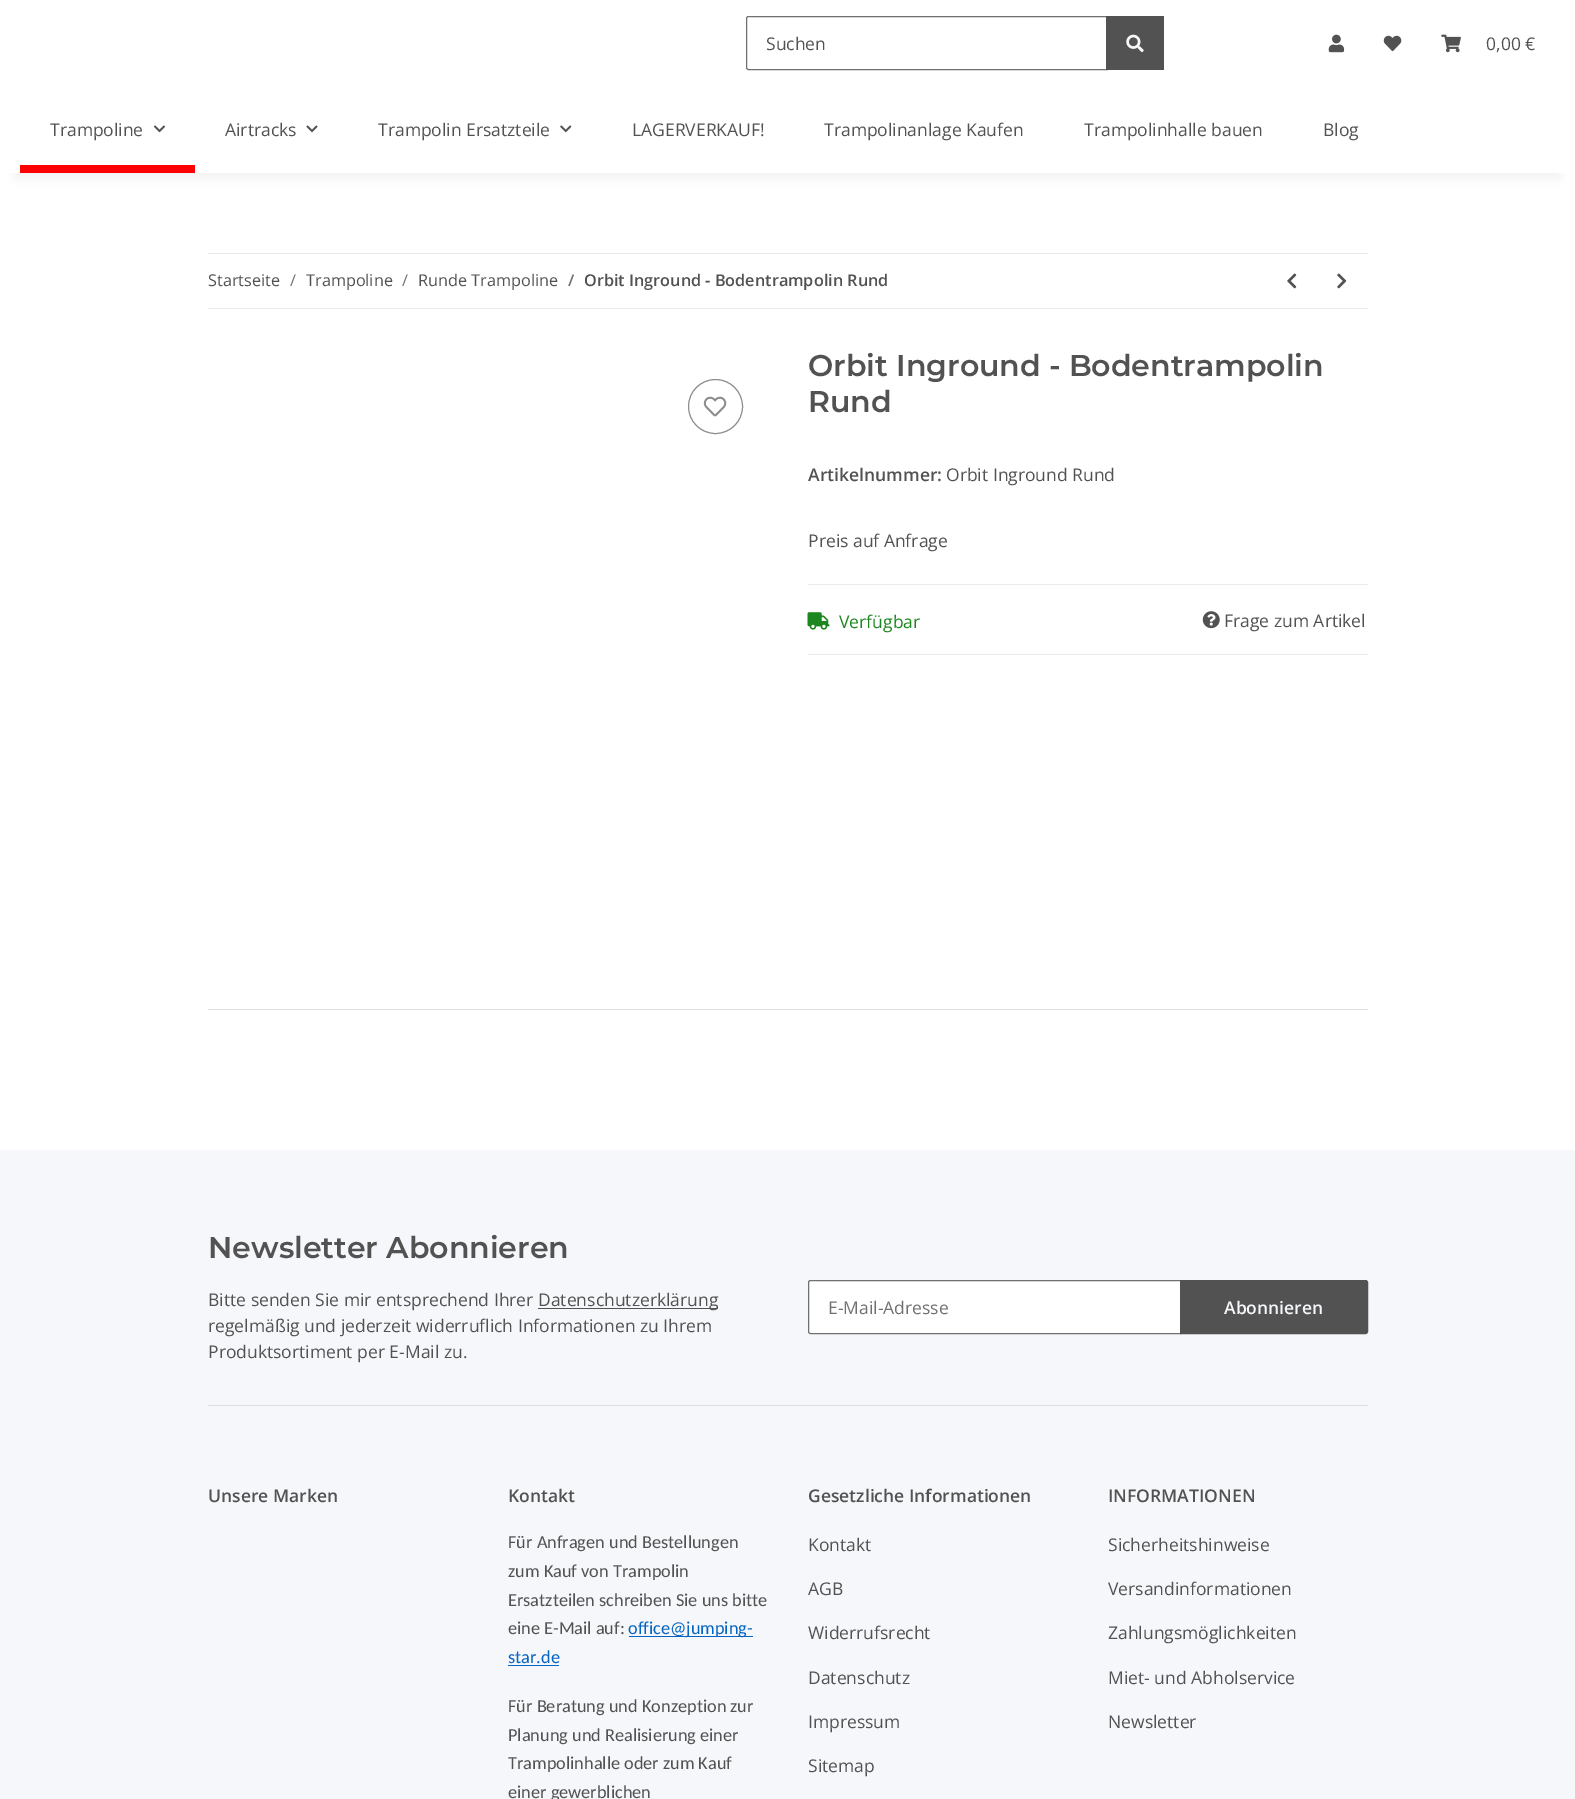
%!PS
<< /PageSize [1575 1799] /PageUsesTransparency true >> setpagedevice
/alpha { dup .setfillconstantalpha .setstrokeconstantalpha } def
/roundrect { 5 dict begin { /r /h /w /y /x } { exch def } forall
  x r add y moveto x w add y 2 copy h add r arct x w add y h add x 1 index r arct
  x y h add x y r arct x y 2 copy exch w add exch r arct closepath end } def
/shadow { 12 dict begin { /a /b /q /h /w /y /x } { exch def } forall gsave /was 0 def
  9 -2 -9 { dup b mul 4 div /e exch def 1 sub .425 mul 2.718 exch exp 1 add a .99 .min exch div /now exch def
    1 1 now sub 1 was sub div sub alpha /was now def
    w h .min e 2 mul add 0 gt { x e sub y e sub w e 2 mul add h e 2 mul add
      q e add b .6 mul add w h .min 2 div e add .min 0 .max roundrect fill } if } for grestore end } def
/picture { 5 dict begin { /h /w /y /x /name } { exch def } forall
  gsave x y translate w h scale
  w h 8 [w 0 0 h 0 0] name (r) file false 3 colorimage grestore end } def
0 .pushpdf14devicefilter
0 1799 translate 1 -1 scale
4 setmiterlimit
0.961 0.969 0.98 setrgbcolor
0 0 1575 1799 rectfill
1 setgray
0 173 1575 977 rectfill
0 setgray
15 35 1545 143 0 5.5 0.06 shadow
1 setgray
0 0 1575 173 rectfill
0.439 setgray
newpath 748.5 16.5 moveto 1107.5 16.5 lineto 1107.5 69.5 lineto 748.5 69.5 lineto 747.5 69.5 746.5 68.5 746.5 67.5 curveto 746.5 18.5 lineto 746.5 17.5 747.5 16.5 748.5 16.5 curveto closepath stroke
/OpenSans-Regular [17.5 0 0 -17.5 0 0] selectfont
0.322 setgray
766 50 moveto (Suchen) show
1106 16 58 54 rectfill
(img1.rgb) 1126 34 18 19 picture
(img2.rgb) 1328 34 17 19 picture
(img3.rgb) 1383 35 19 17 picture
(img4.rgb) 1441 34 20 19 picture
1486 50 moveto (0,00 €) show
50 136 moveto (Trampoline) show
(img5.rgb) 153 125 12 8 picture
0.996 0 0.008 setrgbcolor
20 165 175 8 rectfill
0.322 setgray
225 136 moveto (Airtracks) show
(img6.rgb) 306 125 12 8 picture
378 136 moveto (Trampolin Ersatzteile) show
(img7.rgb) 560 125 12 8 picture
632 136 moveto (LAGERVERKAUF!) show
824 136 moveto (Trampolinanlage Kaufen) show
1084 136 moveto (Trampolinhalle bauen) show
1323 136 moveto (Blog) show
0.922 setgray
208 253 1160 1 rectfill
208 308 1160 1 rectfill
/OpenSans-Regular [16.25 0 0 -16.25 0 0] selectfont
0.322 setgray
208 286 moveto (Startseite) show
0.439 setgray
290 286 moveto (/) show
0.322 setgray
306 286 moveto (Trampoline) show
0.439 setgray
402 286 moveto (/) show
0.322 setgray
418 286 moveto (Runde Trampoline) show
/OpenSans-SemiBold [16.25 0 0 -16.25 0 0] selectfont
0.439 setgray
568 286 moveto (/) show
0.322 setgray
584 286 moveto (Orbit Inground - Bodentrampolin Rund) show
(img8.rgb) 1287 273 10 16 picture
(img9.rgb) 1337 273 10 16 picture
0.553 setgray
newpath 715.5 406.5 27 0 360 arc closepath stroke
(img10.rgb) 703 396 24 21 picture
/Montserrat-SemiBold [30 0 0 -30 0 0] selectfont
0.322 setgray
808 376 moveto (Orbit Inground - Bodentrampolin) show
808 412 moveto (Rund) show
/OpenSans-SemiBold [17.5 0 0 -17.5 0 0] selectfont
808 481 moveto (Artikelnummer:) show
/OpenSans-Regular [17.5 0 0 -17.5 0 0] selectfont
946 481 moveto (Orbit Inground Rund) show
808 547 moveto (Preis auf Anfrage) show
0.922 setgray
808 584 560 1 rectfill
808 654 560 1 rectfill
(img11.rgb) 807 612 23 18 picture
0.11 0.529 0.118 setrgbcolor
839 628 moveto (Verfügbar) show
(img12.rgb) 1202 611 18 18 picture
0.322 setgray
1224 627 moveto (Frage zum Artikel) show
0.871 0.886 0.902 setrgbcolor
208 1009 1160 1 rectfill
/Montserrat-SemiBold [30 0 0 -30 0 0] selectfont
0.322 setgray
208 1258 moveto (Newsletter Abonnieren) show
/OpenSans-Regular [17.5 0 0 -17.5 0 0] selectfont
208 1306 moveto (Bitte senden Sie mir entsprechend Ihrer) show
538 1308 180 1 rectfill
538 1306 moveto (Datenschutzerklärung) show
208 1332 moveto (regelmäßig und jederzeit widerruflich Informationen zu Ihrem) show
208 1358 moveto (Produktsortiment per E-Mail zu.) show
1 setgray
newpath 810 1281 moveto 1180 1281 lineto 1180 1333 lineto 810 1333 lineto 809.5 1333 809 1332.5 809 1332 curveto 809 1282 lineto 809 1281.5 809.5 1281 810 1281 curveto closepath fill
0.439 setgray
newpath 810.5 1280.5 moveto 1180.5 1280.5 lineto 1180.5 1333.5 lineto 810.5 1333.5 lineto 809.5 1333.5 808.5 1332.5 808.5 1331.5 curveto 808.5 1282.5 lineto 808.5 1281.5 809.5 1280.5 810.5 1280.5 curveto closepath stroke
828 1314 moveto (E-Mail-Adresse) show
0.322 setgray
newpath 1180.5 1280.5 moveto 1365.5 1280.5 lineto 1366.5 1280.5 1367.5 1281.5 1367.5 1282.5 curveto 1367.5 1331.5 lineto 1367.5 1332.5 1366.5 1333.5 1365.5 1333.5 curveto 1180.5 1333.5 lineto closepath gsave fill grestore
stroke
/OpenSans-SemiBold [17.5 0 0 -17.5 0 0] selectfont
0.961 0.969 0.98 setrgbcolor
1224 1314 moveto (Abonnieren) show
0.867 0.871 0.882 setrgbcolor
208 1405 1160 1 rectfill
0.322 setgray
208 1502 moveto (Unsere Marken) show
508 1502 moveto (Kontakt) show
/Carlito-Regular [18.3 0 0 -18.3 0 0] selectfont
508 1548 moveto (Für Anfragen und Bestellungen) show
508 1577 moveto (zum Kauf von Trampolin) show
508 1606 moveto (Ersatzteilen schreiben Sie uns bitte) show
508 1634 moveto (eine E-Mail auf:) show
0.02 0.388 0.757 setrgbcolor
629 1636 124 1 rectfill
628 1634 moveto (office@jumping-) show
508 1663 moveto (star.de) show
508 1665 51 1 rectfill
0.322 setgray
508 1712 moveto (Für Beratung und Konzeption zur) show
508 1741 moveto (Planung und Realisierung einer) show
508 1769 moveto (Trampolinhalle oder zum Kauf) show
508 1798 moveto (einer gewerblichen) show
/OpenSans-SemiBold [17.5 0 0 -17.5 0 0] selectfont
808 1502 moveto (Gesetzliche Informationen) show
/OpenSans-Regular [17.5 0 0 -17.5 0 0] selectfont
808 1551 moveto (Kontakt) show
808 1595 moveto (AGB) show
808 1639 moveto (Widerrufsrecht) show
808 1684 moveto (Datenschutz) show
808 1728 moveto (Impressum) show
808 1772 moveto (Sitemap) show
/OpenSans-SemiBold [17.5 0 0 -17.5 0 0] selectfont
1108 1502 moveto (INFORMATIONEN) show
/OpenSans-Regular [17.5 0 0 -17.5 0 0] selectfont
1108 1551 moveto (Sicherheitshinweise) show
1108 1595 moveto (Versandinformationen) show
1108 1639 moveto (Zahlungsmöglichkeiten) show
1108 1684 moveto (Miet- und Abholservice) show
1108 1728 moveto (Newsletter) show
.poppdf14devicefilter showpage
